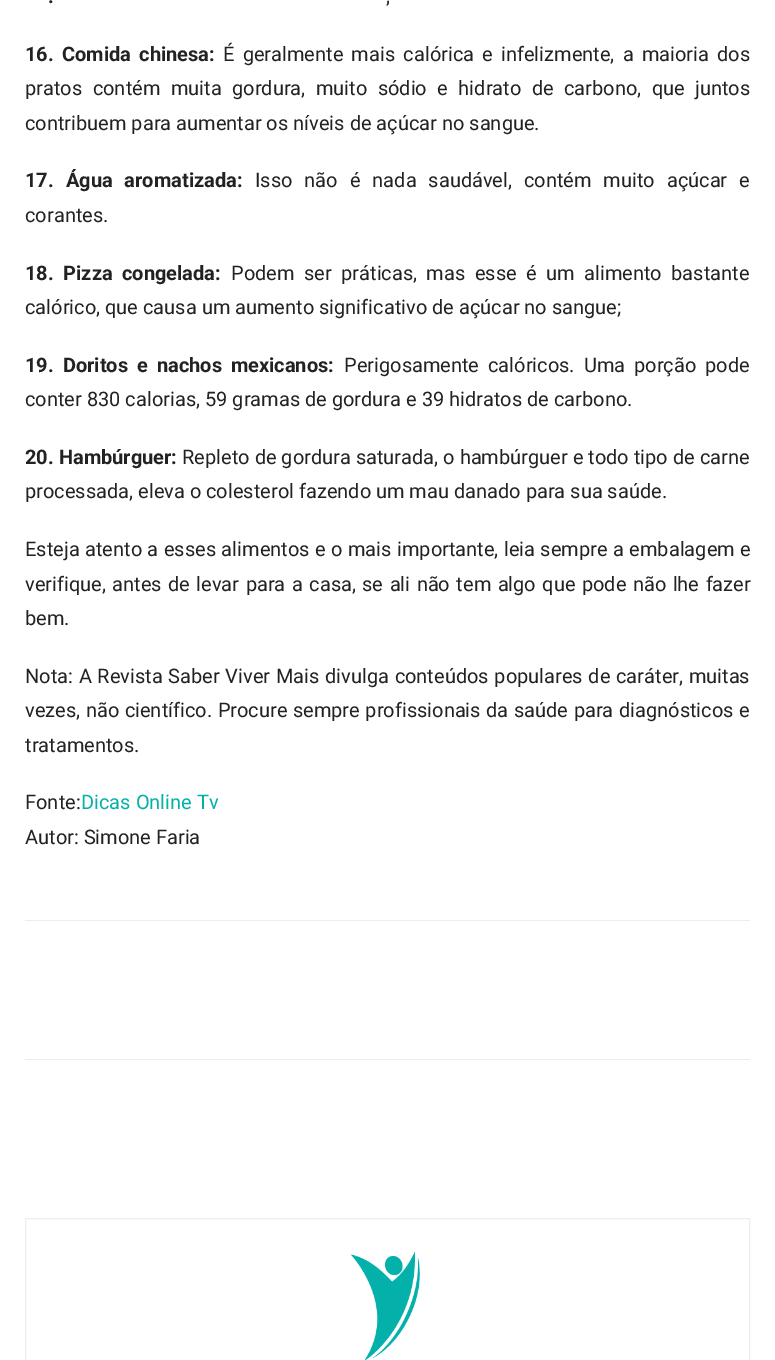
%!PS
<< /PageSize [775 1360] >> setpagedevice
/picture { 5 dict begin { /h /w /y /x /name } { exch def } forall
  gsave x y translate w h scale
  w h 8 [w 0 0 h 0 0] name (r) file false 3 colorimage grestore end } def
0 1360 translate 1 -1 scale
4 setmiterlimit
1 setgray
0 0 775 1360 rectfill
/Roboto-Bold [20 0 0 -20 0 0] selectfont
0.133 setgray
48 3 moveto (.) show
/Roboto-Regular [20 0 0 -20 0 0] selectfont
386 3 moveto (,) show
/Roboto-Bold [20 0 0 -20 0 0] selectfont
25 61 moveto 3.25 0 32 (16. Comida chinesa:) widthshow
/Roboto-Regular [20 0 0 -20 0 0] selectfont
223 61 moveto 3.25 0 32 (É geralmente mais calórica e infelizmente, a maioria dos) widthshow
25 95 moveto 5.5 0 32 (pratos contém muita gordura, muito sódio e hidrato de carbono, que juntos) widthshow
25 130 moveto (contribuem para aumentar os níveis de açúcar no sangue.) show
/Roboto-Bold [20 0 0 -20 0 0] selectfont
25 187 moveto 7 0 32 (17. Água aromatizada:) widthshow
/Roboto-Regular [20 0 0 -20 0 0] selectfont
255 187 moveto 7 0 32 (Isso não é nada saudável, contém muito açúcar e) widthshow
25 222 moveto (corantes.) show
/Roboto-Bold [20 0 0 -20 0 0] selectfont
25 280 moveto 4.5 0 32 (18. Pizza congelada:) widthshow
/Roboto-Regular [20 0 0 -20 0 0] selectfont
231 280 moveto 4.5 0 32 (Podem ser práticas, mas esse é um alimento bastante) widthshow
25 314 moveto (calórico, que causa um aumento significativo de açúcar no sangue;) show
/Roboto-Bold [20 0 0 -20 0 0] selectfont
25 372 moveto 4 0 32 (19. Doritos e nachos mexicanos:) widthshow
/Roboto-Regular [20 0 0 -20 0 0] selectfont
344 372 moveto 4 0 32 (Perigosamente calóricos. Uma porção pode) widthshow
25 406 moveto (conter 830 calorias, 59 gramas de gordura e 39 hidratos de carbono.) show
/Roboto-Bold [20 0 0 -20 0 0] selectfont
25 464 moveto (20. Hambúrguer:) show
/Roboto-Regular [20 0 0 -20 0 0] selectfont
182 464 moveto (Repleto de gordura saturada, o hambúrguer e todo tipo de carne) show
25 498 moveto (processada, eleva o colesterol fazendo um mau danado para sua saúde.) show
25 556 moveto 0.5 0 32 (Esteja atento a esses alimentos e o mais importante, leia sempre a embalagem e) widthshow
25 591 moveto 1.5 0 32 (verifique, antes de levar para a casa, se ali não tem algo que pode não lhe fazer) widthshow
25 625 moveto (bem.) show
25 683 moveto 0.75 0 32 (Nota: A Revista Saber Viver Mais divulga conteúdos populares de caráter, muitas) widthshow
25 717 moveto 0.6 0 32 (vezes, não científico. Procure sempre profissionais da saúde para diagnósticos e) widthshow
25 752 moveto (tratamentos.) show
25 809 moveto (Fonte:) show
0.016 0.69 0.667 setrgbcolor
81 809 moveto (Dicas Online Tv) show
0.133 setgray
25 844 moveto (Autor: Simone Faria) show
0.929 setgray
25 920 725 1 rectfill
25 1059 725 1 rectfill
25.5 1218.5 724 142 rectstroke
(img1.rgb) 350 1251 70 109 picture
showpage
